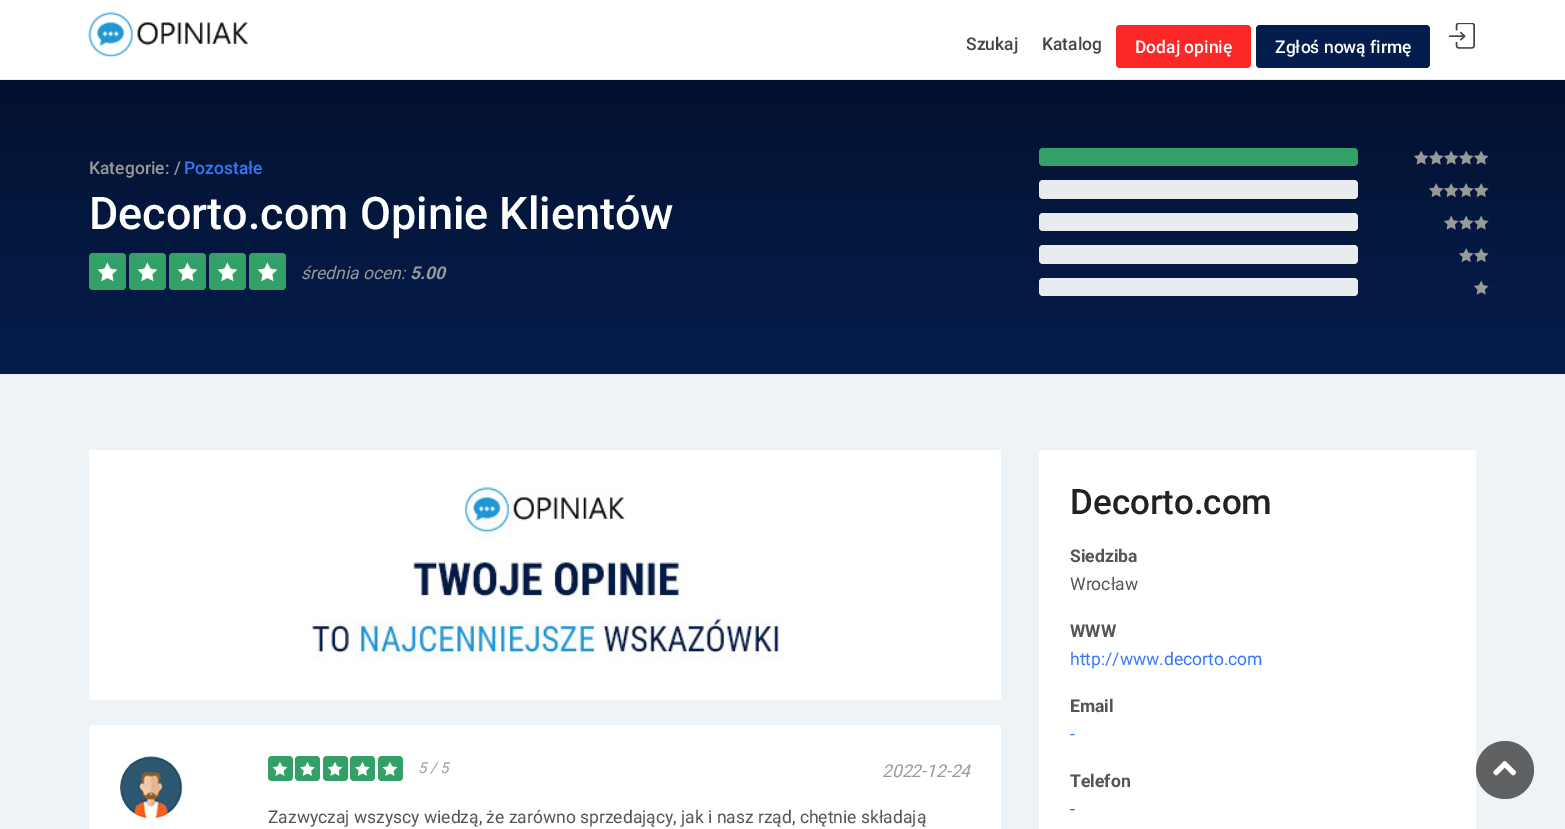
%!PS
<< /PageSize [1565 829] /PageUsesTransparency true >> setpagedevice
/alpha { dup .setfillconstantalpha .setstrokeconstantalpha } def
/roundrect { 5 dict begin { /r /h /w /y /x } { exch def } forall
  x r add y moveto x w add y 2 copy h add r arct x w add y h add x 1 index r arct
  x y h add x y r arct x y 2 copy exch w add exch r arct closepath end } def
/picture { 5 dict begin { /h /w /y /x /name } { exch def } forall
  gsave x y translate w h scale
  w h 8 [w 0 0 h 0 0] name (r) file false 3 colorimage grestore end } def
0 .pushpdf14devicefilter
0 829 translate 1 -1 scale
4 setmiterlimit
0.933 0.953 0.969 setrgbcolor
0 0 1565 829 rectfill
1 setgray
0 0 1565 79 rectfill
0.929 setgray
0 79 1565 1 rectfill
(img1.rgb) 88 12 161 45 picture
/Roboto-Medium [17.5 0 0 -17.5 0 0] selectfont
0.267 setgray
966 50 moveto (Szukaj) show
1042 50 moveto (Katalog) show
0.988 0.153 0.153 setrgbcolor
1116 25 135 43 4 roundrect fill
1 setgray
1135 53 moveto (Dodaj opinię) show
0.02 0.114 0.302 setrgbcolor
1256 25 174 43 4 roundrect fill
1 setgray
1275 53 moveto (Zgłoś nową firmę) show
(img2.rgb) 1449 23 26 26 picture
0.929 setgray
0 374 1565 1 rectfill
gsave newpath 0 80 moveto 1565 80 lineto 1565 374 lineto 0 374 lineto closepath clip newpath
<< /ShadingType 2 /ColorSpace /DeviceRGB /Coords [783 72 783 374] /Extend [true true] /Function << /FunctionType 2 /Domain [0 1] /C0 [0.012 0.067 0.18] /C1 [0.02 0.114 0.298] /N 1 >> >> shfill grestore
0.6 setgray
89 174 moveto (Kategorie: /) show
0.208 0.471 0.98 setrgbcolor
184 174 moveto (Pozostałe) show
/Roboto-Medium [45 0 0 -45 0 0] selectfont
1 setgray
89 229 moveto (Decorto.com Opinie Klientów) show
0.196 0.627 0.404 setrgbcolor
89 253 37 37 4 roundrect fill
(img3.rgb) 97 262 21 20 picture
129 253 37 37 4 roundrect fill
(img3.rgb) 137 262 21 20 picture
169 253 37 37 4 roundrect fill
(img3.rgb) 177 262 21 20 picture
209 253 37 37 4 roundrect fill
(img3.rgb) 217 262 21 20 picture
249 253 37 37 4 roundrect fill
(img3.rgb) 257 262 21 20 picture
/Roboto-Italic [17.5 0 0 -17.5 0 0] selectfont
0.6 setgray
301 279 moveto (średnia ocen:) show
/Roboto-BoldItalic [17.5 0 0 -17.5 0 0] selectfont
410 279 moveto (5.00) show
0.196 0.627 0.404 setrgbcolor
1039 148 319 18 4 roundrect fill
(img4.rgb) 1414 150 15 15 picture
(img4.rgb) 1429 150 15 15 picture
(img4.rgb) 1444 150 15 15 picture
(img4.rgb) 1459 150 15 15 picture
(img4.rgb) 1474 150 15 15 picture
0.914 0.925 0.937 setrgbcolor
1039 180 319 19 4 roundrect fill
(img5.rgb) 1428 183 16 15 picture
(img6.rgb) 1443 183 16 15 picture
(img6.rgb) 1458 183 16 15 picture
(img6.rgb) 1473 183 16 15 picture
1039 213 319 18 4 roundrect fill
(img7.rgb) 1444 215 15 15 picture
(img7.rgb) 1459 215 15 15 picture
(img7.rgb) 1474 215 15 15 picture
1039 245 319 19 4 roundrect fill
(img8.rgb) 1458 248 16 15 picture
(img9.rgb) 1473 248 16 15 picture
1039 278 319 18 4 roundrect fill
(img10.rgb) 1474 280 15 15 picture
1 setgray
89 450 912 250 rectfill
(img11.rgb) 305 480 480 180 picture
89 725 912 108 4 roundrect fill
(img12.rgb) 120 756 63 63 picture
0.196 0.627 0.404 setrgbcolor
268 756 25 25 4 roundrect fill
(img13.rgb) 272 762 16 14 picture
295 756 25 25 4 roundrect fill
(img14.rgb) 300 762 15 14 picture
323 756 25 25 4 roundrect fill
(img13.rgb) 327 762 16 14 picture
350 756 25 25 4 roundrect fill
(img14.rgb) 355 762 15 14 picture
378 756 25 25 4 roundrect fill
(img13.rgb) 382 762 16 14 picture
/Roboto-Italic [15 0 0 -15 0 0] selectfont
0.6 setgray
418 773 moveto (5 / 5) show
/Roboto-Italic [17.5 0 0 -17.5 0 0] selectfont
882 777 moveto (2022-12-24) show
/Roboto-Regular [17.5 0 0 -17.5 0 0] selectfont
0.333 setgray
268 823 moveto (Zazwyczaj wszyscy wiedzą, że zarówno sprzedający, jak i nasz rząd, chętnie składają) show
1 setgray
1039 450 437 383 4 roundrect fill
/Roboto-Medium [35 0 0 -35 0 0] selectfont
0.133 setgray
1070 514 moveto (Decorto.com) show
/Roboto-Bold [17.5 0 0 -17.5 0 0] selectfont
0.333 setgray
1070 562 moveto (Siedziba) show
/Roboto-Regular [17.5 0 0 -17.5 0 0] selectfont
1070 590 moveto (Wrocław) show
/Roboto-Bold [17.5 0 0 -17.5 0 0] selectfont
1070 637 moveto (WWW) show
/Roboto-Regular [17.5 0 0 -17.5 0 0] selectfont
0.208 0.471 0.98 setrgbcolor
1070 665 moveto (http://www.decorto.com) show
/Roboto-Bold [17.5 0 0 -17.5 0 0] selectfont
0.333 setgray
1070 712 moveto (Email) show
/Roboto-Regular [17.5 0 0 -17.5 0 0] selectfont
0.208 0.471 0.98 setrgbcolor
1070 740 moveto (-) show
/Roboto-Bold [17.5 0 0 -17.5 0 0] selectfont
0.333 setgray
1070 787 moveto (Telefon) show
/Roboto-Regular [17.5 0 0 -17.5 0 0] selectfont
1070 815 moveto (-) show
0.6 alpha
0 setgray
newpath 1505 770 29 0 360 arc closepath fill
1 alpha
(img15.rgb) 1493 761 24 15 picture
.poppdf14devicefilter showpage
